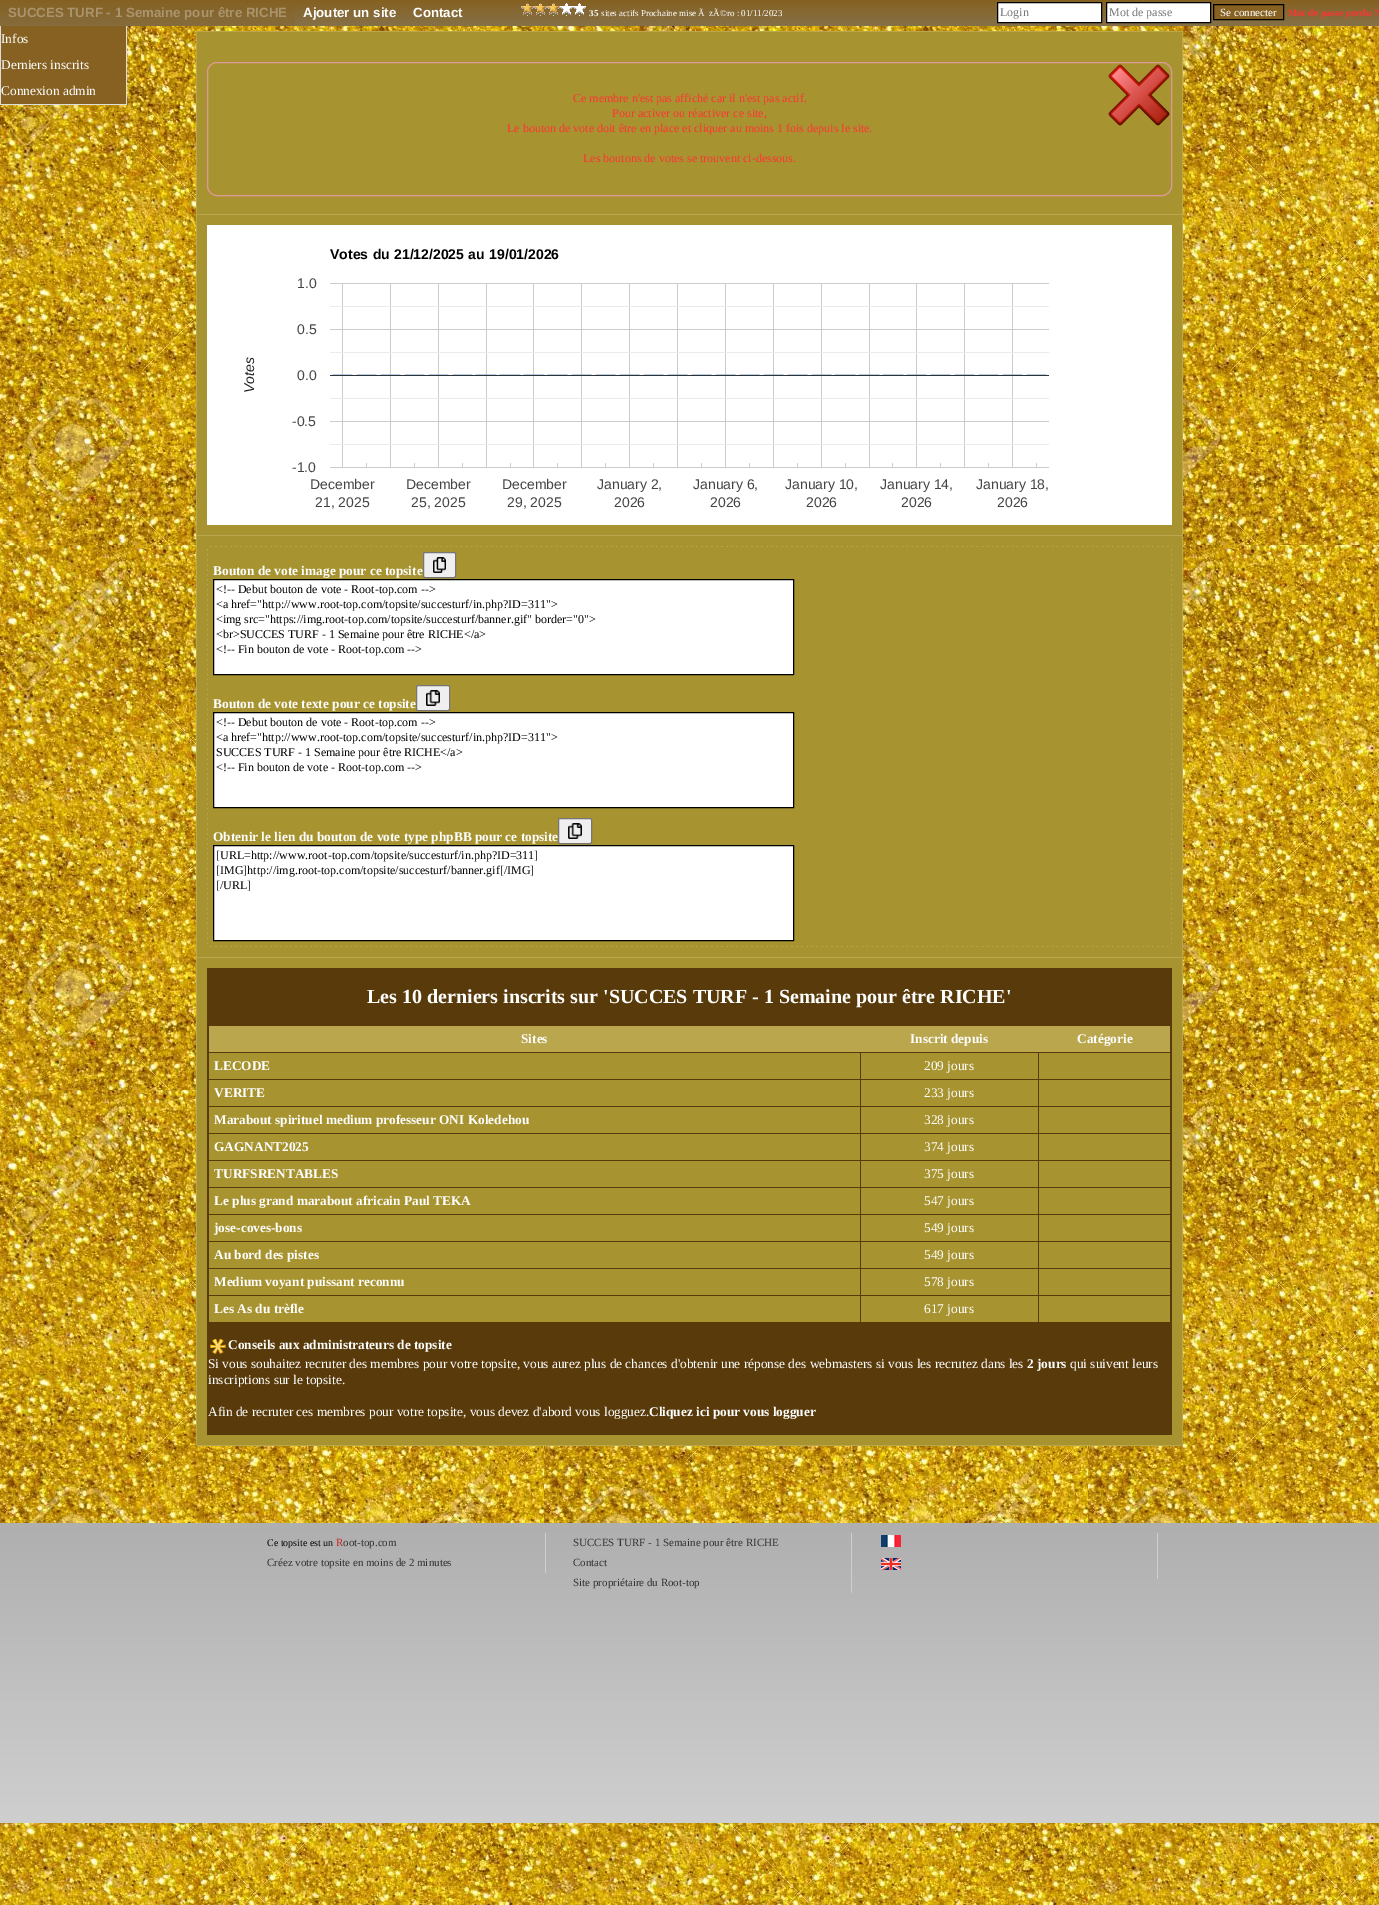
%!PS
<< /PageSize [1379 1905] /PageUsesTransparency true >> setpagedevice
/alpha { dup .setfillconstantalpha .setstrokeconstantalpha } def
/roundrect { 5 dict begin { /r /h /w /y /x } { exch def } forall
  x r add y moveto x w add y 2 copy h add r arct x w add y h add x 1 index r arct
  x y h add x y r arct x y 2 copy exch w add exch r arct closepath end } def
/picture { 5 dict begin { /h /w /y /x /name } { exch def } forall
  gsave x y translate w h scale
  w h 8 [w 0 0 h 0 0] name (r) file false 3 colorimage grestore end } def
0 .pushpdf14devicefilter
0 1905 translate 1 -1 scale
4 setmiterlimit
1 setgray
0 0 1379 1905 rectfill
(img1.rgb) 0 26 1379 1879 picture
gsave newpath 832 0 moveto 995 0 lineto 995 26 lineto 832 26 lineto closepath clip newpath
<< /ShadingType 2 /ColorSpace /DeviceRGB /Coords [0 0 0 26] /Extend [true true] /Function << /FunctionType 2 /Domain [0 1] /C0 [0.525 0.38 0.129] /C1 [0.522 0.443 0.286] /N 1 >> >> shfill grestore
gsave newpath 0 0 moveto 295 0 lineto 295 26 lineto 0 26 lineto closepath clip newpath
<< /ShadingType 2 /ColorSpace /DeviceRGB /Coords [0 0 0 26] /Extend [true true] /Function << /FunctionType 2 /Domain [0 1] /C0 [0.525 0.38 0.129] /C1 [0.522 0.443 0.286] /N 1 >> >> shfill grestore
0.3 alpha
0.525 0.38 0.129 setrgbcolor
0 6 295 20 rectfill
/LiberationSans-Bold [13.33 0 0 -13.33 0 0] selectfont
1 alpha
0.667 0.58 0.427 setrgbcolor
8 17 moveto (SUCCES TURF - 1 Semaine pour être RICHE) show
0.867 setgray
126 26 1 79 rectfill
0 104 127 1 rectfill
0 26 1 79 rectfill
0.525 0.38 0.129 setrgbcolor
1 26 125 78 rectfill
/LiberationSerif-Regular [13.33 0 0 -13.33 0 0] selectfont
1 setgray
1 43 moveto (Infos) show
1 69 moveto (Derniers inscrits) show
1 95 moveto (Connexion admin) show
gsave newpath 295 0 moveto 405 0 lineto 405 26 lineto 295 26 lineto closepath clip newpath
<< /ShadingType 2 /ColorSpace /DeviceRGB /Coords [295 0 295 26] /Extend [true true] /Function << /FunctionType 2 /Domain [0 1] /C0 [0.525 0.38 0.129] /C1 [0.522 0.443 0.286] /N 1 >> >> shfill grestore
/LiberationSans-Bold [13.33 0 0 -13.33 0 0] selectfont
303 17 moveto (Ajouter un site) show
gsave newpath 405 0 moveto 470 0 lineto 470 26 lineto 405 26 lineto closepath clip newpath
<< /ShadingType 2 /ColorSpace /DeviceRGB /Coords [405 0 405 26] /Extend [true true] /Function << /FunctionType 2 /Domain [0 1] /C0 [0.525 0.38 0.129] /C1 [0.522 0.443 0.286] /N 1 >> >> shfill grestore
413 17 moveto (Contact) show
gsave newpath 470 0 moveto 520 0 lineto 520 26 lineto 470 26 lineto closepath clip newpath
<< /ShadingType 2 /ColorSpace /DeviceRGB /Coords [470 0 470 26] /Extend [true true] /Function << /FunctionType 2 /Domain [0 1] /C0 [0.525 0.38 0.129] /C1 [0.522 0.443 0.286] /N 1 >> >> shfill grestore
gsave newpath 520 0 moveto 782 0 lineto 782 26 lineto 520 26 lineto closepath clip newpath
<< /ShadingType 2 /ColorSpace /DeviceRGB /Coords [520 0 520 26] /Extend [true true] /Function << /FunctionType 2 /Domain [0 1] /C0 [0.525 0.38 0.129] /C1 [0.522 0.443 0.286] /N 1 >> >> shfill grestore
(img2.rgb) 521 3 65 13 picture
/LiberationSerif-Bold [9 0 0 -9 0 0] selectfont
589 16 moveto (35) show
/LiberationSerif-Regular [9 0 0 -9 0 0] selectfont
601 16 moveto (sites actifs Prochaine mise Ã  zÃ©ro : 01/11/2023) show
gsave newpath 782 0 moveto 832 0 lineto 832 26 lineto 782 26 lineto closepath clip newpath
<< /ShadingType 2 /ColorSpace /DeviceRGB /Coords [782 0 782 26] /Extend [true true] /Function << /FunctionType 2 /Domain [0 1] /C0 [0.525 0.38 0.129] /C1 [0.522 0.443 0.286] /N 1 >> >> shfill grestore
gsave newpath 995 0 moveto 1379 0 lineto 1379 26 lineto 995 26 lineto closepath clip newpath
<< /ShadingType 2 /ColorSpace /DeviceRGB /Coords [995 0 995 26] /Extend [true true] /Function << /FunctionType 2 /Domain [0 1] /C0 [0.525 0.38 0.129] /C1 [0.522 0.443 0.286] /N 1 >> >> shfill grestore
newpath 997.5 2.5 moveto 1101.5 2.5 lineto 1101.5 22.5 lineto 997.5 22.5 lineto closepath gsave fill grestore
0 setgray
stroke
/LiberationSerif-Regular [12 0 0 -12 0 0] selectfont
0.459 setgray
1000 16 moveto (Login) show
1 setgray
newpath 1106.5 2.5 moveto 1210.5 2.5 lineto 1210.5 22.5 lineto 1106.5 22.5 lineto closepath gsave fill grestore
0 setgray
stroke
0.459 setgray
1109 16 moveto (Mot de passe) show
0.525 0.38 0.129 setrgbcolor
newpath 1213.5 4.5 moveto 1283.5 4.5 lineto 1283.5 19.5 lineto 1213.5 19.5 lineto closepath gsave fill grestore
0 setgray
stroke
/LiberationSerif-Regular [11 0 0 -11 0 0] selectfont
1 setgray
1220 16 moveto (Se connecter) show
/LiberationSerif-Bold [10 0 0 -10 0 0] selectfont
1 0.2 0.2 setrgbcolor
1288 16 moveto (Mot de passe perdu ?) show
0.725 0.651 0.302 setrgbcolor
196 31 987 1415 rectfill
0.659 0.576 0.192 setrgbcolor
197 32 985 182 rectfill
(img3.rgb) 1108 64 62 62 picture
0.867 0.6 0.6 setrgbcolor
207.5 62.5 964 133 9.5 roundrect stroke
/LiberationSerif-Regular [12 0 0 -12 0 0] selectfont
1 0.2 0.2 setrgbcolor
573 102 moveto (Ce membre n'est pas affiché car il n'est pas actif.) show
612 117 moveto (Pour activer ou réactiver ce site,) show
507 132 moveto (Le bouton de vote doit être en place et cliquer au moins 1 fois depuis le site.) show
583 162 moveto (Les boutons de votes se trouvent ci-dessous.) show
0.659 0.576 0.192 setrgbcolor
197 215 985 320 rectfill
(img4.rgb) 207 225 965 300 picture
/LiberationSans-Bold [14 0 0 -14 0 0] selectfont
0 setgray
330 259 moveto 0.5 0 32 (Votes du 21/12/2025 au 19/01/2026) widthshow
/LiberationSans-Regular [14 0 0 -14 0 0] selectfont
0.267 setgray
297 288 moveto (1.0) show
297 334 moveto (0.5) show
/LiberationSans-Italic [14 0 0 -14 0 0] selectfont
0.133 setgray
gsave 254 393 translate -90 rotate 0 0 moveto (Votes) show grestore
/LiberationSans-Regular [14 0 0 -14 0 0] selectfont
0.267 setgray
297 380 moveto (0.0) show
292 426 moveto (-0.5) show
292 472 moveto (-1.0) show
310 489 moveto (December) show
406 489 moveto (December) show
502 489 moveto (December) show
597 489 moveto (January 2,) show
693 489 moveto (January 6,) show
785 489 moveto (January 10,) show
880 489 moveto (January 14,) show
976 489 moveto (January 18,) show
315 507 moveto (21, 2025) show
411 507 moveto (25, 2025) show
507 507 moveto (29, 2025) show
614 507 moveto (2026) show
710 507 moveto (2026) show
806 507 moveto (2026) show
901 507 moveto (2026) show
997 507 moveto (2026) show
0.659 0.576 0.192 setrgbcolor
197 536 985 421 rectfill
0.725 0.651 0.302 setrgbcolor
207 546 965 401 rectfill
0.659 0.576 0.192 setrgbcolor
[3 2.01] 0 setdash
newpath 207 546.5 moveto 1172 546.5 lineto stroke
[3 1.98] 0 setdash
newpath 1171.5 546 moveto 1171.5 947 lineto stroke
[3 2.01] 0 setdash
newpath 207 946.5 moveto 1172 946.5 lineto stroke
[3 1.98] 0 setdash
newpath 207.5 546 moveto 207.5 947 lineto stroke
208 547 963 399 rectfill
/LiberationSerif-Bold [13.33 0 0 -13.33 0 0] selectfont
1 setgray
213 575 moveto (Bouton de vote image pour ce topsite) show
0.937 setgray
423.5 552.5 32 25 1.5 roundrect gsave fill grestore
0.463 setgray
[] 0 setdash
stroke
(img5.rgb) 433 557 13 16 picture
1 setgray
newpath 213.5 579.5 moveto 793.5 579.5 lineto 793.5 674.5 lineto 213.5 674.5 lineto closepath gsave fill grestore
0 setgray
stroke
/LiberationSerif-Regular [12 0 0 -12 0 0] selectfont
216 593 moveto (<!-- Debut bouton de vote - Root-top.com -->) show
216 608 moveto (<a href="http://www.root-top.com/topsite/succesturf/in.php?ID=311">) show
216 623 moveto (<img src="https://img.root-top.com/topsite/succesturf/banner.gif" border="0">) show
216 638 moveto (<br>SUCCES TURF - 1 Semaine pour être RICHE</a>) show
216 653 moveto (<!-- Fin bouton de vote - Root-top.com -->) show
/LiberationSerif-Bold [13.33 0 0 -13.33 0 0] selectfont
1 setgray
213 708 moveto (Bouton de vote texte pour ce topsite) show
0.937 setgray
416.5 685.5 33 25 1.5 roundrect gsave fill grestore
0.463 setgray
stroke
(img6.rgb) 426 690 14 16 picture
1 setgray
newpath 213.5 712.5 moveto 793.5 712.5 lineto 793.5 807.5 lineto 213.5 807.5 lineto closepath gsave fill grestore
0 setgray
stroke
/LiberationSerif-Regular [12 0 0 -12 0 0] selectfont
216 726 moveto (<!-- Debut bouton de vote - Root-top.com -->) show
216 741 moveto (<a href="http://www.root-top.com/topsite/succesturf/in.php?ID=311">) show
216 756 moveto (SUCCES TURF - 1 Semaine pour être RICHE</a>) show
216 771 moveto (<!-- Fin bouton de vote - Root-top.com -->) show
/LiberationSerif-Bold [13.33 0 0 -13.33 0 0] selectfont
1 setgray
213 841 moveto (Obtenir le lien du bouton de vote type phpBB pour ce topsite) show
0.937 setgray
558.5 818.5 33 25 1.5 roundrect gsave fill grestore
0.463 setgray
stroke
(img6.rgb) 568 823 14 16 picture
1 setgray
newpath 213.5 845.5 moveto 793.5 845.5 lineto 793.5 940.5 lineto 213.5 940.5 lineto closepath gsave fill grestore
0 setgray
stroke
/LiberationSerif-Regular [12 0 0 -12 0 0] selectfont
216 859 moveto ([URL=http://www.root-top.com/topsite/succesturf/in.php?ID=311]) show
216 874 moveto ([IMG]http://img.root-top.com/topsite/succesturf/banner.gif[/IMG]) show
216 889 moveto ([/URL]) show
0.659 0.576 0.192 setrgbcolor
197 958 985 487 rectfill
0.349 0.231 0.043 setrgbcolor
207 968 965 467 rectfill
/LiberationSerif-Bold [20 0 0 -20 0 0] selectfont
1 setgray
367 1003 moveto (Les 10 derniers inscrits sur 'SUCCES TURF - 1 Semaine pour être RICHE') show
0.725 0.651 0.302 setrgbcolor
209 1026 961 26 rectfill
/LiberationSerif-Bold [13.33 0 0 -13.33 0 0] selectfont
1 setgray
521 1043 moveto (Sites) show
910 1043 moveto (Inscrit depuis) show
1077 1043 moveto (Catégorie) show
0.659 0.576 0.192 setrgbcolor
209 1053 651 26 rectfill
1 setgray
214 1070 moveto (LECODE) show
0.659 0.576 0.192 setrgbcolor
861 1053 177 26 rectfill
/LiberationSerif-Regular [13.33 0 0 -13.33 0 0] selectfont
1 setgray
924 1070 moveto (209 jours) show
0.659 0.576 0.192 setrgbcolor
1039 1053 131 26 rectfill
209 1080 651 26 rectfill
/LiberationSerif-Bold [13.33 0 0 -13.33 0 0] selectfont
1 setgray
214 1097 moveto (VERITE) show
0.659 0.576 0.192 setrgbcolor
861 1080 177 26 rectfill
/LiberationSerif-Regular [13.33 0 0 -13.33 0 0] selectfont
1 setgray
924 1097 moveto (233 jours) show
0.659 0.576 0.192 setrgbcolor
1039 1080 131 26 rectfill
209 1107 651 26 rectfill
/LiberationSerif-Bold [13.33 0 0 -13.33 0 0] selectfont
1 setgray
214 1124 moveto (Marabout spirituel medium professeur ONI Koledehou) show
0.659 0.576 0.192 setrgbcolor
861 1107 177 26 rectfill
/LiberationSerif-Regular [13.33 0 0 -13.33 0 0] selectfont
1 setgray
924 1124 moveto (328 jours) show
0.659 0.576 0.192 setrgbcolor
1039 1107 131 26 rectfill
209 1134 651 26 rectfill
/LiberationSerif-Bold [13.33 0 0 -13.33 0 0] selectfont
1 setgray
214 1151 moveto (GAGNANT2025) show
0.659 0.576 0.192 setrgbcolor
861 1134 177 26 rectfill
/LiberationSerif-Regular [13.33 0 0 -13.33 0 0] selectfont
1 setgray
924 1151 moveto (374 jours) show
0.659 0.576 0.192 setrgbcolor
1039 1134 131 26 rectfill
209 1161 651 26 rectfill
/LiberationSerif-Bold [13.33 0 0 -13.33 0 0] selectfont
1 setgray
214 1178 moveto (TURFSRENTABLES) show
0.659 0.576 0.192 setrgbcolor
861 1161 177 26 rectfill
/LiberationSerif-Regular [13.33 0 0 -13.33 0 0] selectfont
1 setgray
924 1178 moveto (375 jours) show
0.659 0.576 0.192 setrgbcolor
1039 1161 131 26 rectfill
209 1188 651 26 rectfill
/LiberationSerif-Bold [13.33 0 0 -13.33 0 0] selectfont
1 setgray
214 1205 moveto (Le plus grand marabout africain Paul TEKA) show
0.659 0.576 0.192 setrgbcolor
861 1188 177 26 rectfill
/LiberationSerif-Regular [13.33 0 0 -13.33 0 0] selectfont
1 setgray
924 1205 moveto (547 jours) show
0.659 0.576 0.192 setrgbcolor
1039 1188 131 26 rectfill
209 1215 651 26 rectfill
/LiberationSerif-Bold [13.33 0 0 -13.33 0 0] selectfont
1 setgray
214 1232 moveto (jose-coves-bons) show
0.659 0.576 0.192 setrgbcolor
861 1215 177 26 rectfill
/LiberationSerif-Regular [13.33 0 0 -13.33 0 0] selectfont
1 setgray
924 1232 moveto (549 jours) show
0.659 0.576 0.192 setrgbcolor
1039 1215 131 26 rectfill
209 1242 651 26 rectfill
/LiberationSerif-Bold [13.33 0 0 -13.33 0 0] selectfont
1 setgray
214 1259 moveto (Au bord des pistes) show
0.659 0.576 0.192 setrgbcolor
861 1242 177 26 rectfill
/LiberationSerif-Regular [13.33 0 0 -13.33 0 0] selectfont
1 setgray
924 1259 moveto (549 jours) show
0.659 0.576 0.192 setrgbcolor
1039 1242 131 26 rectfill
209 1269 651 26 rectfill
/LiberationSerif-Bold [13.33 0 0 -13.33 0 0] selectfont
1 setgray
214 1286 moveto (Medium voyant puissant reconnu) show
0.659 0.576 0.192 setrgbcolor
861 1269 177 26 rectfill
/LiberationSerif-Regular [13.33 0 0 -13.33 0 0] selectfont
1 setgray
924 1286 moveto (578 jours) show
0.659 0.576 0.192 setrgbcolor
1039 1269 131 26 rectfill
209 1296 651 26 rectfill
/LiberationSerif-Bold [13.33 0 0 -13.33 0 0] selectfont
1 setgray
214 1313 moveto (Les As du trèfle) show
0.659 0.576 0.192 setrgbcolor
861 1296 177 26 rectfill
/LiberationSerif-Regular [13.33 0 0 -13.33 0 0] selectfont
1 setgray
924 1313 moveto (617 jours) show
0.659 0.576 0.192 setrgbcolor
1039 1296 131 26 rectfill
(img7.rgb) 210 1339 16 15 picture
/LiberationSerif-Bold [13.33 0 0 -13.33 0 0] selectfont
1 setgray
228 1349 moveto (Conseils aux administrateurs de topsite) show
/LiberationSerif-Regular [13.33 0 0 -13.33 0 0] selectfont
208 1368 moveto (Si vous souhaitez recruter des membres pour votre topsite, vous aurez plus de chances d'obtenir une réponse des webmasters si vous les recrutez dans les) show
/LiberationSerif-Bold [13.33 0 0 -13.33 0 0] selectfont
1027 1368 moveto (2 jours) show
/LiberationSerif-Regular [13.33 0 0 -13.33 0 0] selectfont
1070 1368 moveto (qui suivent leurs) show
208 1384 moveto (inscriptions sur le topsite.) show
208 1416 moveto (Afin de recruter ces membres pour votre topsite, vous devez d'abord vous logguez.) show
/LiberationSerif-Bold [13.33 0 0 -13.33 0 0] selectfont
649 1416 moveto (Cliquez ici pour vous logguer) show
gsave newpath 0 1523 moveto 1379 1523 lineto 1379 1823 lineto 0 1823 lineto closepath clip newpath
<< /ShadingType 2 /ColorSpace /DeviceRGB /Coords [0 1523 0 1823] /Extend [true true] /Function << /FunctionType 2 /Domain [0 1] /C0 [0.686 0.686 0.686] /C1 [0.812 0.812 0.812] /N 1 >> >> shfill grestore
0.812 setgray
545 1533 1 40 rectfill
/LiberationSerif-Regular [10 0 0 -10 0 0] selectfont
0 setgray
267 1546 moveto (Ce topsite est un) show
/LiberationSerif-Regular [11 0 0 -11 0 0] selectfont
0.8 0.133 0.133 setrgbcolor
336 1546 moveto (R) show
0.2 setgray
343 1546 moveto (oot-top.com) show
267 1566 moveto (Créez votre topsite en moins de 2 minutes) show
0.812 setgray
851 1533 1 60 rectfill
0.2 setgray
573 1546 moveto (SUCCES TURF - 1 Semaine pour être RICHE) show
573 1566 moveto (Contact) show
573 1586 moveto (Site propriétaire du Root-top) show
0.812 setgray
1157 1533 1 46 rectfill
(img8.rgb) 881 1535 20 12 picture
(img9.rgb) 881 1558 20 12 picture
.poppdf14devicefilter showpage
